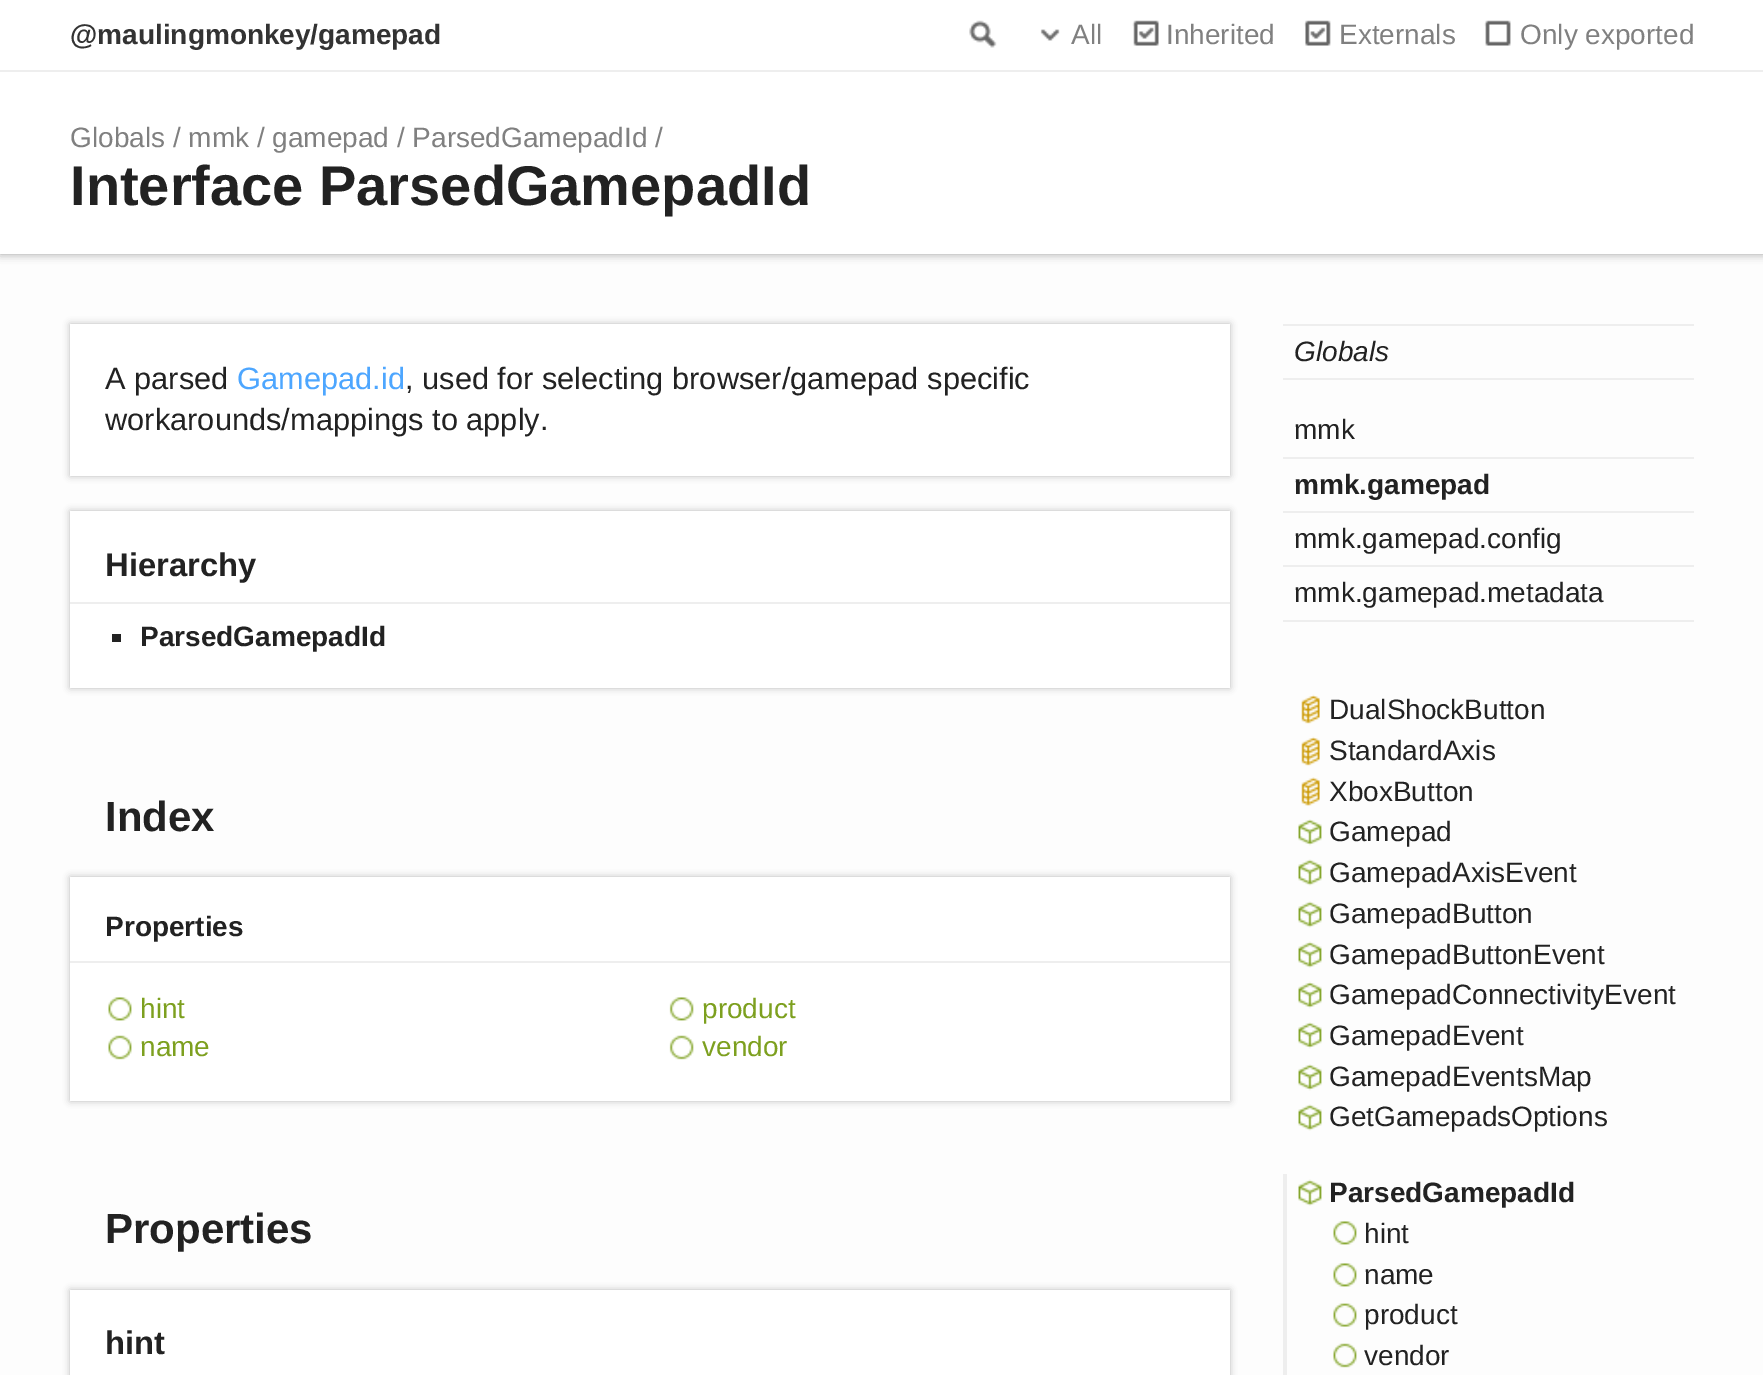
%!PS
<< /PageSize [1763 1375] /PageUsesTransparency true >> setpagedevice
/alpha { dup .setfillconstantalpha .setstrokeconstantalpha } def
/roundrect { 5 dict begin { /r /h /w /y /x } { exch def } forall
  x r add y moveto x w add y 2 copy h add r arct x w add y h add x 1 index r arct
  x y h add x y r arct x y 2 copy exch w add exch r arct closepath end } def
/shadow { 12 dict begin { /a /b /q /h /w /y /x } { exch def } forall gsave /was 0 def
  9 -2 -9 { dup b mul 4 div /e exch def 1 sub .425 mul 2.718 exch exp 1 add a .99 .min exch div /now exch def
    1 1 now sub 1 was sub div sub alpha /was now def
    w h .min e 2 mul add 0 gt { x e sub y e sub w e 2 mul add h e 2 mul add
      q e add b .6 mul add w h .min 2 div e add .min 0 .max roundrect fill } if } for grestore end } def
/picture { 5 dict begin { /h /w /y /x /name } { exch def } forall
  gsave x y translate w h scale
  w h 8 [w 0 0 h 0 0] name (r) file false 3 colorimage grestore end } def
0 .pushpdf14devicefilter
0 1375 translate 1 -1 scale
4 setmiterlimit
0.992 setgray
0 0 1763 1375 rectfill
0 setgray
0 0 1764 254 0 4.5 0.35 shadow
1 setgray
0 0 1763 254 rectfill
0.933 setgray
0 70 1763 2 rectfill
/LiberationSans-Bold [28 0 0 -28 0 0] selectfont
0.2 setgray
70 44 moveto (@maulingmonkey/gamepad) show
(img1.rgb) 969 20 28 28 picture
(img2.rgb) 1040 29 20 12 picture
/LiberationSans-Regular [28 0 0 -28 0 0] selectfont
0.502 setgray
1071 44 moveto (All) show
(img3.rgb) 1132 20 27 26 picture
1166 44 moveto (Inherited) show
(img4.rgb) 1304 20 27 26 picture
1339 44 moveto (Externals) show
(img5.rgb) 1484 20 27 26 picture
1520 44 moveto (Only exported) show
70 147 moveto (Globals / mmk / gamepad / ParsedGamepadId /) show
/LiberationSans-Bold [56 0 0 -56 0 0] selectfont
0.133 setgray
70 205 moveto (Interface ParsedGamepadId) show
0 setgray
70 324 1160 152 0 3.5 0.25 shadow
1 setgray
70 324 1160 152 rectfill
/LiberationSans-Regular [30.8 0 0 -30.8 0 0] selectfont
0.133 setgray
105 389 moveto (A parsed) show
0.302 0.651 1 setrgbcolor
237 389 moveto (Gamepad.id) show
0.133 setgray
405 389 moveto (, used for selecting browser/gamepad specific) show
105 430 moveto (workarounds/mappings to apply.) show
0 setgray
70 511 1160 177 0 3.5 0.25 shadow
1 setgray
70 511 1160 177 rectfill
0.933 setgray
70 602 1160 2 rectfill
/LiberationSans-Bold [32.75 0 0 -32.75 0 0] selectfont
0.133 setgray
105 576 moveto (Hierarchy) show
112 634 9 8 rectfill
/LiberationSans-Bold [28 0 0 -28 0 0] selectfont
140 646 moveto (ParsedGamepadId) show
/LiberationSans-Bold [42 0 0 -42 0 0] selectfont
105 831 moveto (Index) show
0 setgray
70 877 1160 224 0 3.5 0.25 shadow
1 setgray
70 877 1160 224 rectfill
0.933 setgray
70 961 1160 2 rectfill
/LiberationSans-Bold [28 0 0 -28 0 0] selectfont
0.133 setgray
105 936 moveto (Properties) show
(img6.rgb) 108 997 24 24 picture
/LiberationSans-Regular [28 0 0 -28 0 0] selectfont
0.49 0.627 0.122 setrgbcolor
140 1018 moveto (hint) show
(img7.rgb) 669 997 25 24 picture
702 1018 moveto (product) show
(img8.rgb) 108 1035 24 25 picture
140 1056 moveto (name) show
(img9.rgb) 669 1035 25 25 picture
702 1056 moveto (vendor) show
/LiberationSans-Bold [42 0 0 -42 0 0] selectfont
0.133 setgray
105 1243 moveto (Properties) show
0 setgray
70 1290 1160 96 0 3.5 0.25 shadow
1 setgray
70 1290 1160 85 rectfill
/LiberationSans-Bold [32.75 0 0 -32.75 0 0] selectfont
0.133 setgray
105 1354 moveto (hint) show
0.933 setgray
1283 620 411 2 rectfill
1283 324 411 2 rectfill
/LiberationSans-Italic [28 0 0 -28 0 0] selectfont
0.133 setgray
1294 361 moveto (Globals) show
0.933 setgray
1283 378 411 2 rectfill
/LiberationSans-Regular [28 0 0 -28 0 0] selectfont
0.133 setgray
1294 439 moveto (mmk) show
0.933 setgray
1283 457 411 2 rectfill
/LiberationSans-Bold [28 0 0 -28 0 0] selectfont
0.133 setgray
1294 494 moveto (mmk.gamepad) show
0.933 setgray
1283 511 411 2 rectfill
/LiberationSans-Regular [28 0 0 -28 0 0] selectfont
0.133 setgray
1294 548 moveto (mmk.gamepad.config) show
0.933 setgray
1283 565 411 2 rectfill
0.133 setgray
1294 602 moveto (mmk.gamepad.metadata) show
(img10.rgb) 1301 694 19 30 picture
1329 719 moveto (DualShockButton) show
(img10.rgb) 1301 736 19 30 picture
1329 760 moveto (StandardAxis) show
(img11.rgb) 1301 777 19 29 picture
1329 801 moveto (XboxButton) show
(img12.rgb) 1298 819 24 27 picture
1329 841 moveto (Gamepad) show
(img13.rgb) 1298 859 24 27 picture
1329 882 moveto (GamepadAxisEvent) show
(img13.rgb) 1298 901 24 27 picture
1329 923 moveto (GamepadButton) show
(img14.rgb) 1298 941 24 27 picture
1329 964 moveto (GamepadButtonEvent) show
(img15.rgb) 1298 981 24 28 picture
1329 1004 moveto (GamepadConnectivityEvent) show
(img12.rgb) 1298 1022 24 27 picture
1329 1045 moveto (GamepadEvent) show
(img12.rgb) 1298 1064 24 27 picture
1329 1086 moveto (GamepadEventsMap) show
(img13.rgb) 1298 1104 24 27 picture
1329 1126 moveto (GetGamepadsOptions) show
0.933 setgray
1283 1174 4 201 rectfill
(img14.rgb) 1298 1179 24 27 picture
/LiberationSans-Bold [28 0 0 -28 0 0] selectfont
0.133 setgray
1329 1202 moveto (ParsedGamepadId) show
(img16.rgb) 1333 1221 24 24 picture
/LiberationSans-Regular [28 0 0 -28 0 0] selectfont
1364 1243 moveto (hint) show
(img16.rgb) 1333 1263 24 24 picture
1364 1284 moveto (name) show
(img17.rgb) 1333 1303 24 24 picture
1364 1324 moveto (product) show
(img18.rgb) 1333 1343 24 25 picture
1364 1365 moveto (vendor) show
.poppdf14devicefilter showpage
